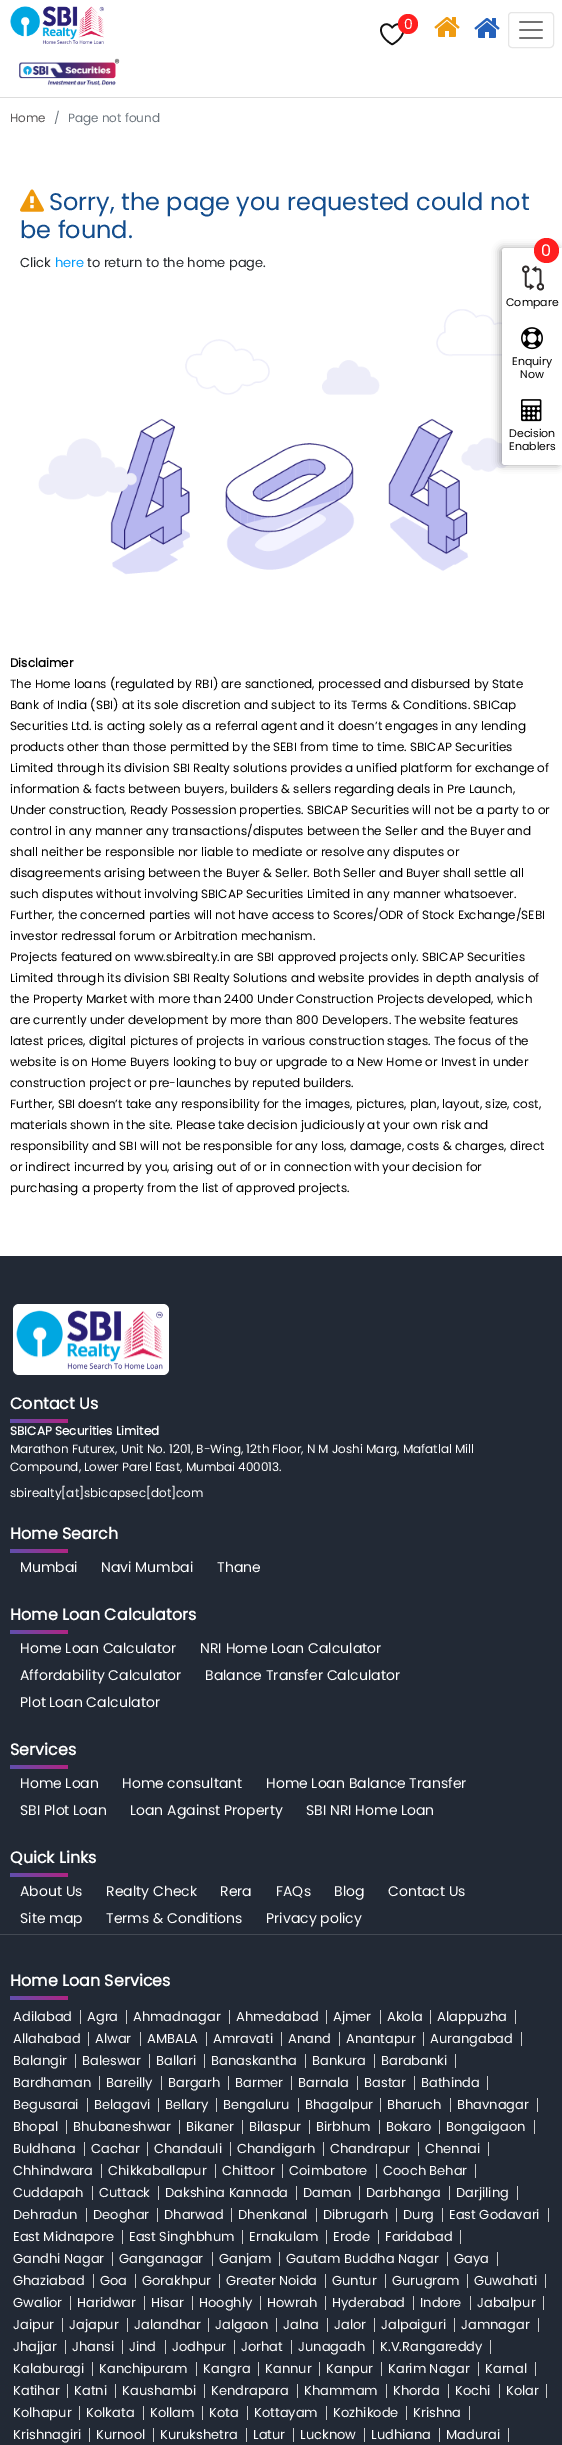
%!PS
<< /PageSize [562 2445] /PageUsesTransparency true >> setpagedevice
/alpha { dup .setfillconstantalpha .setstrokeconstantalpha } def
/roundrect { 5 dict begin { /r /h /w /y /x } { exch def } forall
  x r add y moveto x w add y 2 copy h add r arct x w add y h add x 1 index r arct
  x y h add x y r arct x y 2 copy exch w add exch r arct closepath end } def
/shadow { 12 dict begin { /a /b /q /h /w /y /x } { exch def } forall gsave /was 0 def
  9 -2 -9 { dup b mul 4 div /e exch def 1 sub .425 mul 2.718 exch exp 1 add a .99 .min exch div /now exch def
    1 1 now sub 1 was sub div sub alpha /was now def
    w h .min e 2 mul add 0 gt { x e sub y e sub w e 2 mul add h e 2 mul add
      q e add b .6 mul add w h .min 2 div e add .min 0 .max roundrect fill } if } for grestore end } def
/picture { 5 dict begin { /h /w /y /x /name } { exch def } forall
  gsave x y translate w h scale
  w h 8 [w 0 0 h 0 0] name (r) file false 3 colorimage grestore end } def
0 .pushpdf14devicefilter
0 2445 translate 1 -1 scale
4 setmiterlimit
1 setgray
0 0 562 2445 rectfill
0.867 setgray
0 97 562 1 rectfill
(img1.rgb) 10 6 94 38 picture
(img2.rgb) 19 58 101 28 picture
(img3.rgb) 380 23 24 23 picture
1 0.122 0.122 setrgbcolor
newpath 408 24 10 0 360 arc closepath fill
/Poppins-Regular [14 0 0 -14 0 0] selectfont
1 setgray
404 29 moveto (0) show
(img4.rgb) 434 17 26 20 picture
(img5.rgb) 474 18 26 20 picture
0.902 setgray
508.5 12.5 45 35 3.5 roundrect stroke
(img6.rgb) 519 21 24 18 picture
/Poppins-Regular [12 0 0 -12 0 0] selectfont
0.349 0.333 0.333 setrgbcolor
10 122 moveto (Home) show
0.424 0.459 0.49 setrgbcolor
54 122 moveto (/) show
68 122 moveto (Page not found) show
(img7.rgb) 20 189 24 23 picture
/Poppins-Regular [24 0 0 -24 0 0] selectfont
0.071 0.298 0.549 setrgbcolor
49 210 moveto (Sorry, the page you requested could not) show
20 238 moveto (be found.) show
/Poppins-Regular [13 0 0 -13 0 0] selectfont
0.129 0.145 0.161 setrgbcolor
20 267 moveto (Click) show
0 0.6 0.98 setrgbcolor
55 267 moveto (here) show
0.129 0.145 0.161 setrgbcolor
87 267 moveto (to return to the home page.) show
(img8.rgb) 38 309 471 266 picture
0 setgray
500 248 60 217 3 4 0.35 shadow
1 setgray
newpath 505 248 moveto 562 248 lineto 562 465 lineto 505 465 lineto 503.5 465 502 463.5 502 462 curveto 502 251 lineto 502 249.5 503.5 248 505 248 curveto closepath fill
1 0.122 0.122 setrgbcolor
newpath 546.5 250.5 12.5 0 360 arc closepath fill
/Poppins-Regular [16 0 0 -16 0 0] selectfont
1 setgray
541 256 moveto (0) show
(img9.rgb) 522 265 22 26 picture
/Poppins-Regular [11 0 0 -11 0 0] selectfont
0 setgray
506 306 moveto (Compare) show
(img10.rgb) 521 327 22 23 picture
512 365 moveto (Enquiry) show
520 378 moveto (Now) show
(img11.rgb) 521 399 21 23 picture
509 437 moveto (Decision) show
509 450 moveto (Enablers) show
/Poppins-Bold [12 0 0 -12 0 0] selectfont
10 667 moveto (Disclaimer) show
/Poppins-Regular [12 0 0 -12 0 0] selectfont
10 688 moveto (The Home loans \(regulated by RBI\) are sanctioned, processed and disbursed by State) show
10 709 moveto (Bank of India \(SBI\) at its sole discretion and subject to its Terms & Conditions. SBICap) show
10 730 moveto (Securities Ltd. is acting solely as a referral agent and it doesn’t engages in any lending) show
10 751 moveto (products other than those permitted by the SEBI from time to time. SBICAP Securities) show
10 772 moveto (Limited through its division SBI Realty solutions provides a unified platform for exchange of) show
10 793 moveto (information & facts between buyers, builders & sellers regarding deals in Pre Launch,) show
10 814 moveto (Under construction, Ready Possession properties. SBICAP Securities will not be a party to or) show
10 835 moveto (control in any manner any transactions/disputes between the Seller and the Buyer and) show
10 856 moveto (shall neither be responsible nor liable to mediate or resolve any disputes or) show
10 877 moveto (disagreements arising between the Buyer & Seller. Both Seller and Buyer shall settle all) show
10 898 moveto (such disputes without involving SBICAP Securities Limited in any manner whatsoever.) show
10 919 moveto (Further, the concerned parties will not have access to Scores/ODR of Stock Exchange/SEBI) show
10 940 moveto (investor redressal forum or Arbitration mechanism.) show
10 961 moveto (Projects featured on www.sbirealty.in are SBI approved projects only. SBICAP Securities) show
10 982 moveto (Limited through its division SBI Realty Solutions and website provides in depth analysis of) show
10 1003 moveto (the Property Market with more than 2400 Under Construction Projects developed, which) show
10 1024 moveto (are currently under development by more than 800 Developers. The website features) show
10 1045 moveto (latest prices, digital pictures of projects in various construction stages. The focus of the) show
10 1066 moveto (website is on Home Buyers looking to buy or upgrade to a New Home or Invest in under) show
10 1087 moveto (construction project or pre-launches by reputed builders.) show
10 1108 moveto (Further, SBI doesn’t take any responsibility for the images, pictures, plan, layout, size, cost,) show
10 1129 moveto (materials shown in the site. Please take decision judiciously at your own risk and) show
10 1150 moveto (responsibility and SBI will not be responsible for any loss, damage, costs & charges, direct) show
10 1171 moveto (or indirect incurred by you, arising out of or in connection with your decision for) show
10 1192 moveto (purchasing a property from the list of approved projects.) show
0.133 0.161 0.208 setrgbcolor
0 1256 562 1189 rectfill
1 setgray
13 1304 156 71 6 roundrect fill
(img12.rgb) 16 1310 147 60 picture
/Poppins-Bold [16 0 0 -16 0 0] selectfont
10 1409 moveto (Contact Us) show
gsave 10 1419 58 4 2 roundrect clip newpath
<< /ShadingType 2 /ColorSpace /DeviceRGB /Coords [24 1437 55 1406] /Extend [true true] /Function << /FunctionType 2 /Domain [0 1] /C0 [0.369 0.314 0.678] /C1 [0.702 0.137 0.51] /N 1 >> >> shfill grestore
/Poppins-Bold [12 0 0 -12 0 0] selectfont
10 1435 moveto (SBICAP Securities Limited) show
/Poppins-Regular [12 0 0 -12 0 0] selectfont
10 1453 moveto (Marathon Futurex, Unit No. 1201, B-Wing, 12th Floor, N M Joshi Marg, Mafatlal Mill) show
10 1471 moveto (Compound, Lower Parel East, Mumbai 400013.) show
10 1497 moveto (sbirealty[at]sbicapsec[dot]com) show
/Poppins-Bold [16 0 0 -16 0 0] selectfont
10 1539 moveto (Home Search) show
gsave 10 1549 58 4 2 roundrect clip newpath
<< /ShadingType 2 /ColorSpace /DeviceRGB /Coords [24 1567 55 1536] /Extend [true true] /Function << /FunctionType 2 /Domain [0 1] /C0 [0.369 0.314 0.678] /C1 [0.702 0.137 0.51] /N 1 >> >> shfill grestore
/Poppins-Regular [14 0 0 -14 0 0] selectfont
20 1572 moveto (Mumbai) show
101 1572 moveto (Navi Mumbai) show
217 1572 moveto (Thane) show
/Poppins-Bold [16 0 0 -16 0 0] selectfont
10 1620 moveto (Home Loan Calculators) show
gsave 10 1630 58 4 2 roundrect clip newpath
<< /ShadingType 2 /ColorSpace /DeviceRGB /Coords [24 1648 55 1617] /Extend [true true] /Function << /FunctionType 2 /Domain [0 1] /C0 [0.369 0.314 0.678] /C1 [0.702 0.137 0.51] /N 1 >> >> shfill grestore
/Poppins-Regular [14 0 0 -14 0 0] selectfont
20 1653 moveto (Home Loan Calculator) show
200 1653 moveto (NRI Home Loan Calculator) show
20 1680 moveto (Affordability Calculator) show
205 1680 moveto (Balance Transfer Calculator) show
20 1707 moveto (Plot Loan Calculator) show
/Poppins-Bold [16 0 0 -16 0 0] selectfont
10 1755 moveto (Services) show
gsave 10 1765 58 4 2 roundrect clip newpath
<< /ShadingType 2 /ColorSpace /DeviceRGB /Coords [24 1783 55 1752] /Extend [true true] /Function << /FunctionType 2 /Domain [0 1] /C0 [0.369 0.314 0.678] /C1 [0.702 0.137 0.51] /N 1 >> >> shfill grestore
/Poppins-Regular [14 0 0 -14 0 0] selectfont
20 1788 moveto (Home Loan) show
122 1788 moveto (Home consultant) show
266 1788 moveto (Home Loan Balance Transfer) show
20 1815 moveto (SBI Plot Loan) show
130 1815 moveto (Loan Against Property) show
306 1815 moveto (SBI NRI Home Loan) show
/Poppins-Bold [16 0 0 -16 0 0] selectfont
10 1863 moveto (Quick Links) show
gsave 10 1873 58 4 2 roundrect clip newpath
<< /ShadingType 2 /ColorSpace /DeviceRGB /Coords [24 1891 55 1860] /Extend [true true] /Function << /FunctionType 2 /Domain [0 1] /C0 [0.369 0.314 0.678] /C1 [0.702 0.137 0.51] /N 1 >> >> shfill grestore
/Poppins-Regular [14 0 0 -14 0 0] selectfont
20 1896 moveto (About Us) show
106 1896 moveto (Realty Check) show
220 1896 moveto (Rera) show
276 1896 moveto (FAQs) show
334 1896 moveto (Blog) show
388 1896 moveto (Contact Us) show
20 1923 moveto (Site map) show
106 1923 moveto (Terms & Conditions) show
266 1923 moveto (Privacy policy) show
0.263 0.286 0.325 setrgbcolor
0 1934 562 1 rectfill
/Poppins-Bold [16 0 0 -16 0 0] selectfont
1 setgray
10 1986 moveto (Home Loan Services) show
gsave 10 1996 58 4 2 roundrect clip newpath
<< /ShadingType 2 /ColorSpace /DeviceRGB /Coords [24 2014 55 1983] /Extend [true true] /Function << /FunctionType 2 /Domain [0 1] /C0 [0.369 0.314 0.678] /C1 [0.702 0.137 0.51] /N 1 >> >> shfill grestore
/Poppins-Regular [13 0 0 -13 0 0] selectfont
13 2021 moveto (Adilabad) show
0.8 setgray
80 2010 1 14 rectfill
1 setgray
87 2021 moveto (Agra) show
0.8 setgray
126 2010 1 14 rectfill
1 setgray
133 2021 moveto (Ahmadnagar) show
0.8 setgray
229 2010 1 14 rectfill
1 setgray
236 2021 moveto (Ahmedabad) show
0.8 setgray
326 2010 1 14 rectfill
1 setgray
333 2021 moveto (Ajmer) show
0.8 setgray
380 2010 1 14 rectfill
1 setgray
387 2021 moveto (Akola) show
0.8 setgray
430 2010 1 14 rectfill
1 setgray
437 2021 moveto (Alappuzha) show
0.8 setgray
515 2010 1 14 rectfill
1 setgray
13 2043 moveto (Allahabad) show
0.8 setgray
88 2032 1 14 rectfill
1 setgray
95 2043 moveto (Alwar) show
0.8 setgray
140 2032 1 14 rectfill
1 setgray
147 2043 moveto (AMBALA) show
0.8 setgray
206 2032 1 14 rectfill
1 setgray
213 2043 moveto (Amravati) show
0.8 setgray
281 2032 1 14 rectfill
1 setgray
288 2043 moveto (Anand) show
0.8 setgray
339 2032 1 14 rectfill
1 setgray
346 2043 moveto (Anantapur) show
0.8 setgray
423 2032 1 14 rectfill
1 setgray
430 2043 moveto (Aurangabad) show
0.8 setgray
521 2032 1 14 rectfill
1 setgray
13 2065 moveto (Balangir) show
0.8 setgray
75 2054 1 14 rectfill
1 setgray
82 2065 moveto (Baleswar) show
0.8 setgray
149 2054 1 14 rectfill
1 setgray
156 2065 moveto (Ballari) show
0.8 setgray
204 2054 1 14 rectfill
1 setgray
211 2065 moveto (Banaskantha) show
0.8 setgray
305 2054 1 14 rectfill
1 setgray
312 2065 moveto (Bankura) show
0.8 setgray
374 2054 1 14 rectfill
1 setgray
381 2065 moveto (Barabanki) show
0.8 setgray
455 2054 1 14 rectfill
1 setgray
13 2087 moveto (Bardhaman) show
0.8 setgray
99 2076 1 14 rectfill
1 setgray
106 2087 moveto (Bareilly) show
0.8 setgray
161 2076 1 14 rectfill
1 setgray
168 2087 moveto (Bargarh) show
0.8 setgray
228 2076 1 14 rectfill
1 setgray
235 2087 moveto (Barmer) show
0.8 setgray
291 2076 1 14 rectfill
1 setgray
298 2087 moveto (Barnala) show
0.8 setgray
357 2076 1 14 rectfill
1 setgray
364 2087 moveto (Bastar) show
0.8 setgray
414 2076 1 14 rectfill
1 setgray
421 2087 moveto (Bathinda) show
0.8 setgray
487 2076 1 14 rectfill
1 setgray
13 2109 moveto (Begusarai) show
0.8 setgray
87 2098 1 14 rectfill
1 setgray
94 2109 moveto (Belagavi) show
0.8 setgray
158 2098 1 14 rectfill
1 setgray
165 2109 moveto (Bellary) show
0.8 setgray
216 2098 1 14 rectfill
1 setgray
223 2109 moveto (Bengaluru) show
0.8 setgray
298 2098 1 14 rectfill
1 setgray
305 2109 moveto (Bhagalpur) show
0.8 setgray
380 2098 1 14 rectfill
1 setgray
387 2109 moveto (Bharuch) show
0.8 setgray
450 2098 1 14 rectfill
1 setgray
457 2109 moveto (Bhavnagar) show
0.8 setgray
537 2098 1 14 rectfill
1 setgray
13 2131 moveto (Bhopal) show
0.8 setgray
66 2120 1 14 rectfill
1 setgray
73 2131 moveto (Bhubaneshwar) show
0.8 setgray
179 2120 1 14 rectfill
1 setgray
186 2131 moveto (Bikaner) show
0.8 setgray
242 2120 1 14 rectfill
1 setgray
249 2131 moveto (Bilaspur) show
0.8 setgray
309 2120 1 14 rectfill
1 setgray
316 2131 moveto (Birbhum) show
0.8 setgray
379 2120 1 14 rectfill
1 setgray
386 2131 moveto (Bokaro) show
0.8 setgray
439 2120 1 14 rectfill
1 setgray
446 2131 moveto (Bongaigaon) show
0.8 setgray
534 2120 1 14 rectfill
1 setgray
13 2153 moveto (Buldhana) show
0.8 setgray
84 2142 1 14 rectfill
1 setgray
91 2153 moveto (Cachar) show
0.8 setgray
147 2142 1 14 rectfill
1 setgray
154 2153 moveto (Chandauli) show
0.8 setgray
230 2142 1 14 rectfill
1 setgray
237 2153 moveto (Chandigarh) show
0.8 setgray
323 2142 1 14 rectfill
1 setgray
330 2153 moveto (Chandrapur) show
0.8 setgray
418 2142 1 14 rectfill
1 setgray
425 2153 moveto (Chennai) show
0.8 setgray
488 2142 1 14 rectfill
1 setgray
13 2175 moveto (Chhindwara) show
0.8 setgray
101 2164 1 14 rectfill
1 setgray
108 2175 moveto (Chikkaballapur) show
0.8 setgray
215 2164 1 14 rectfill
1 setgray
222 2175 moveto (Chittoor) show
0.8 setgray
282 2164 1 14 rectfill
1 setgray
289 2175 moveto (Coimbatore) show
0.8 setgray
376 2164 1 14 rectfill
1 setgray
383 2175 moveto (Cooch Behar) show
0.8 setgray
475 2164 1 14 rectfill
1 setgray
13 2197 moveto (Cuddapah) show
0.8 setgray
92 2186 1 14 rectfill
1 setgray
99 2197 moveto (Cuttack) show
0.8 setgray
158 2186 1 14 rectfill
1 setgray
165 2197 moveto (Dakshina Kannada) show
0.8 setgray
296 2186 1 14 rectfill
1 setgray
303 2197 moveto (Daman) show
0.8 setgray
359 2186 1 14 rectfill
1 setgray
366 2197 moveto (Darbhanga) show
0.8 setgray
449 2186 1 14 rectfill
1 setgray
456 2197 moveto (Darjiling) show
0.8 setgray
517 2186 1 14 rectfill
1 setgray
13 2219 moveto (Dehradun) show
0.8 setgray
86 2208 1 14 rectfill
1 setgray
93 2219 moveto (Deoghar) show
0.8 setgray
157 2208 1 14 rectfill
1 setgray
164 2219 moveto (Dharwad) show
0.8 setgray
231 2208 1 14 rectfill
1 setgray
238 2219 moveto (Dhenkanal) show
0.8 setgray
316 2208 1 14 rectfill
1 setgray
323 2219 moveto (Dibrugarh) show
0.8 setgray
396 2208 1 14 rectfill
1 setgray
403 2219 moveto (Durg) show
0.8 setgray
442 2208 1 14 rectfill
1 setgray
449 2219 moveto (East Godavari) show
0.8 setgray
548 2208 1 14 rectfill
1 setgray
13 2241 moveto (East Midnapore) show
0.8 setgray
122 2230 1 14 rectfill
1 setgray
129 2241 moveto (East Singhbhum) show
0.8 setgray
242 2230 1 14 rectfill
1 setgray
249 2241 moveto (Ernakulam) show
0.8 setgray
326 2230 1 14 rectfill
1 setgray
333 2241 moveto (Erode) show
0.8 setgray
378 2230 1 14 rectfill
1 setgray
385 2241 moveto (Faridabad) show
0.8 setgray
460 2230 1 14 rectfill
1 setgray
13 2263 moveto (Gandhi Nagar) show
0.8 setgray
112 2252 1 14 rectfill
1 setgray
119 2263 moveto (Ganganagar) show
0.8 setgray
212 2252 1 14 rectfill
1 setgray
219 2263 moveto (Ganjam) show
0.8 setgray
279 2252 1 14 rectfill
1 setgray
286 2263 moveto (Gautam Buddha Nagar) show
0.8 setgray
447 2252 1 14 rectfill
1 setgray
454 2263 moveto (Gaya) show
0.8 setgray
497 2252 1 14 rectfill
1 setgray
13 2285 moveto (Ghaziabad) show
0.8 setgray
93 2274 1 14 rectfill
1 setgray
100 2285 moveto (Goa) show
0.8 setgray
135 2274 1 14 rectfill
1 setgray
142 2285 moveto (Gorakhpur) show
0.8 setgray
219 2274 1 14 rectfill
1 setgray
226 2285 moveto (Greater Noida) show
0.8 setgray
325 2274 1 14 rectfill
1 setgray
332 2285 moveto (Guntur) show
0.8 setgray
385 2274 1 14 rectfill
1 setgray
392 2285 moveto (Gurugram) show
0.8 setgray
467 2274 1 14 rectfill
1 setgray
474 2285 moveto (Guwahati) show
0.8 setgray
545 2274 1 14 rectfill
1 setgray
13 2307 moveto (Gwalior) show
0.8 setgray
70 2296 1 14 rectfill
1 setgray
77 2307 moveto (Haridwar) show
0.8 setgray
144 2296 1 14 rectfill
1 setgray
151 2307 moveto (Hisar) show
0.8 setgray
192 2296 1 14 rectfill
1 setgray
199 2307 moveto (Hooghly) show
0.8 setgray
260 2296 1 14 rectfill
1 setgray
267 2307 moveto (Howrah) show
0.8 setgray
325 2296 1 14 rectfill
1 setgray
332 2307 moveto (Hyderabad) show
0.8 setgray
413 2296 1 14 rectfill
1 setgray
420 2307 moveto (Indore) show
0.8 setgray
470 2296 1 14 rectfill
1 setgray
477 2307 moveto (Jabalpur) show
0.8 setgray
543 2296 1 14 rectfill
1 setgray
13 2329 moveto (Jaipur) show
0.8 setgray
62 2318 1 14 rectfill
1 setgray
69 2329 moveto (Jajapur) show
0.8 setgray
127 2318 1 14 rectfill
1 setgray
134 2329 moveto (Jalandhar) show
0.8 setgray
208 2318 1 14 rectfill
1 setgray
215 2329 moveto (Jalgaon) show
0.8 setgray
276 2318 1 14 rectfill
1 setgray
283 2329 moveto (Jalna) show
0.8 setgray
327 2318 1 14 rectfill
1 setgray
334 2329 moveto (Jalor) show
0.8 setgray
374 2318 1 14 rectfill
1 setgray
381 2329 moveto (Jalpaiguri) show
0.8 setgray
454 2318 1 14 rectfill
1 setgray
461 2329 moveto (Jamnagar) show
0.8 setgray
538 2318 1 14 rectfill
1 setgray
13 2351 moveto (Jhajjar) show
0.8 setgray
65 2340 1 14 rectfill
1 setgray
72 2351 moveto (Jhansi) show
0.8 setgray
122 2340 1 14 rectfill
1 setgray
129 2351 moveto (Jind) show
0.8 setgray
165 2340 1 14 rectfill
1 setgray
172 2351 moveto (Jodhpur) show
0.8 setgray
234 2340 1 14 rectfill
1 setgray
241 2351 moveto (Jorhat) show
0.8 setgray
291 2340 1 14 rectfill
1 setgray
298 2351 moveto (Junagadh) show
0.8 setgray
373 2340 1 14 rectfill
1 setgray
380 2351 moveto (K.V.Rangareddy) show
0.8 setgray
490 2340 1 14 rectfill
1 setgray
13 2373 moveto (Kalaburagi) show
0.8 setgray
92 2362 1 14 rectfill
1 setgray
99 2373 moveto (Kanchipuram) show
0.8 setgray
196 2362 1 14 rectfill
1 setgray
203 2373 moveto (Kangra) show
0.8 setgray
258 2362 1 14 rectfill
1 setgray
265 2373 moveto (Kannur) show
0.8 setgray
319 2362 1 14 rectfill
1 setgray
326 2373 moveto (Kanpur) show
0.8 setgray
381 2362 1 14 rectfill
1 setgray
388 2373 moveto (Karim Nagar) show
0.8 setgray
478 2362 1 14 rectfill
1 setgray
485 2373 moveto (Karnal) show
0.8 setgray
535 2362 1 14 rectfill
1 setgray
13 2395 moveto (Katihar) show
0.8 setgray
67 2384 1 14 rectfill
1 setgray
74 2395 moveto (Katni) show
0.8 setgray
115 2384 1 14 rectfill
1 setgray
122 2395 moveto (Kaushambi) show
0.8 setgray
204 2384 1 14 rectfill
1 setgray
211 2395 moveto (Kendrapara) show
0.8 setgray
297 2384 1 14 rectfill
1 setgray
304 2395 moveto (Khammam) show
0.8 setgray
386 2384 1 14 rectfill
1 setgray
393 2395 moveto (Khorda) show
0.8 setgray
448 2384 1 14 rectfill
1 setgray
455 2395 moveto (Kochi) show
0.8 setgray
499 2384 1 14 rectfill
1 setgray
506 2395 moveto (Kolar) show
0.8 setgray
546 2384 1 14 rectfill
1 setgray
13 2417 moveto (Kolhapur) show
0.8 setgray
79 2406 1 14 rectfill
1 setgray
86 2417 moveto (Kolkata) show
0.8 setgray
143 2406 1 14 rectfill
1 setgray
150 2417 moveto (Kollam) show
0.8 setgray
202 2406 1 14 rectfill
1 setgray
209 2417 moveto (Kota) show
0.8 setgray
247 2406 1 14 rectfill
1 setgray
254 2417 moveto (Kottayam) show
0.8 setgray
326 2406 1 14 rectfill
1 setgray
333 2417 moveto (Kozhikode) show
0.8 setgray
406 2406 1 14 rectfill
1 setgray
413 2417 moveto (Krishna) show
0.8 setgray
469 2406 1 14 rectfill
1 setgray
13 2439 moveto (Krishnagiri) show
0.8 setgray
89 2428 1 14 rectfill
1 setgray
96 2439 moveto (Kurnool) show
0.8 setgray
153 2428 1 14 rectfill
1 setgray
160 2439 moveto (Kurukshetra) show
0.8 setgray
246 2428 1 14 rectfill
1 setgray
253 2439 moveto (Latur) show
0.8 setgray
293 2428 1 14 rectfill
1 setgray
300 2439 moveto (Lucknow) show
0.8 setgray
364 2428 1 14 rectfill
1 setgray
371 2439 moveto (Ludhiana) show
0.8 setgray
439 2428 1 14 rectfill
1 setgray
446 2439 moveto (Madurai) show
0.8 setgray
508 2428 1 14 rectfill
.poppdf14devicefilter showpage
